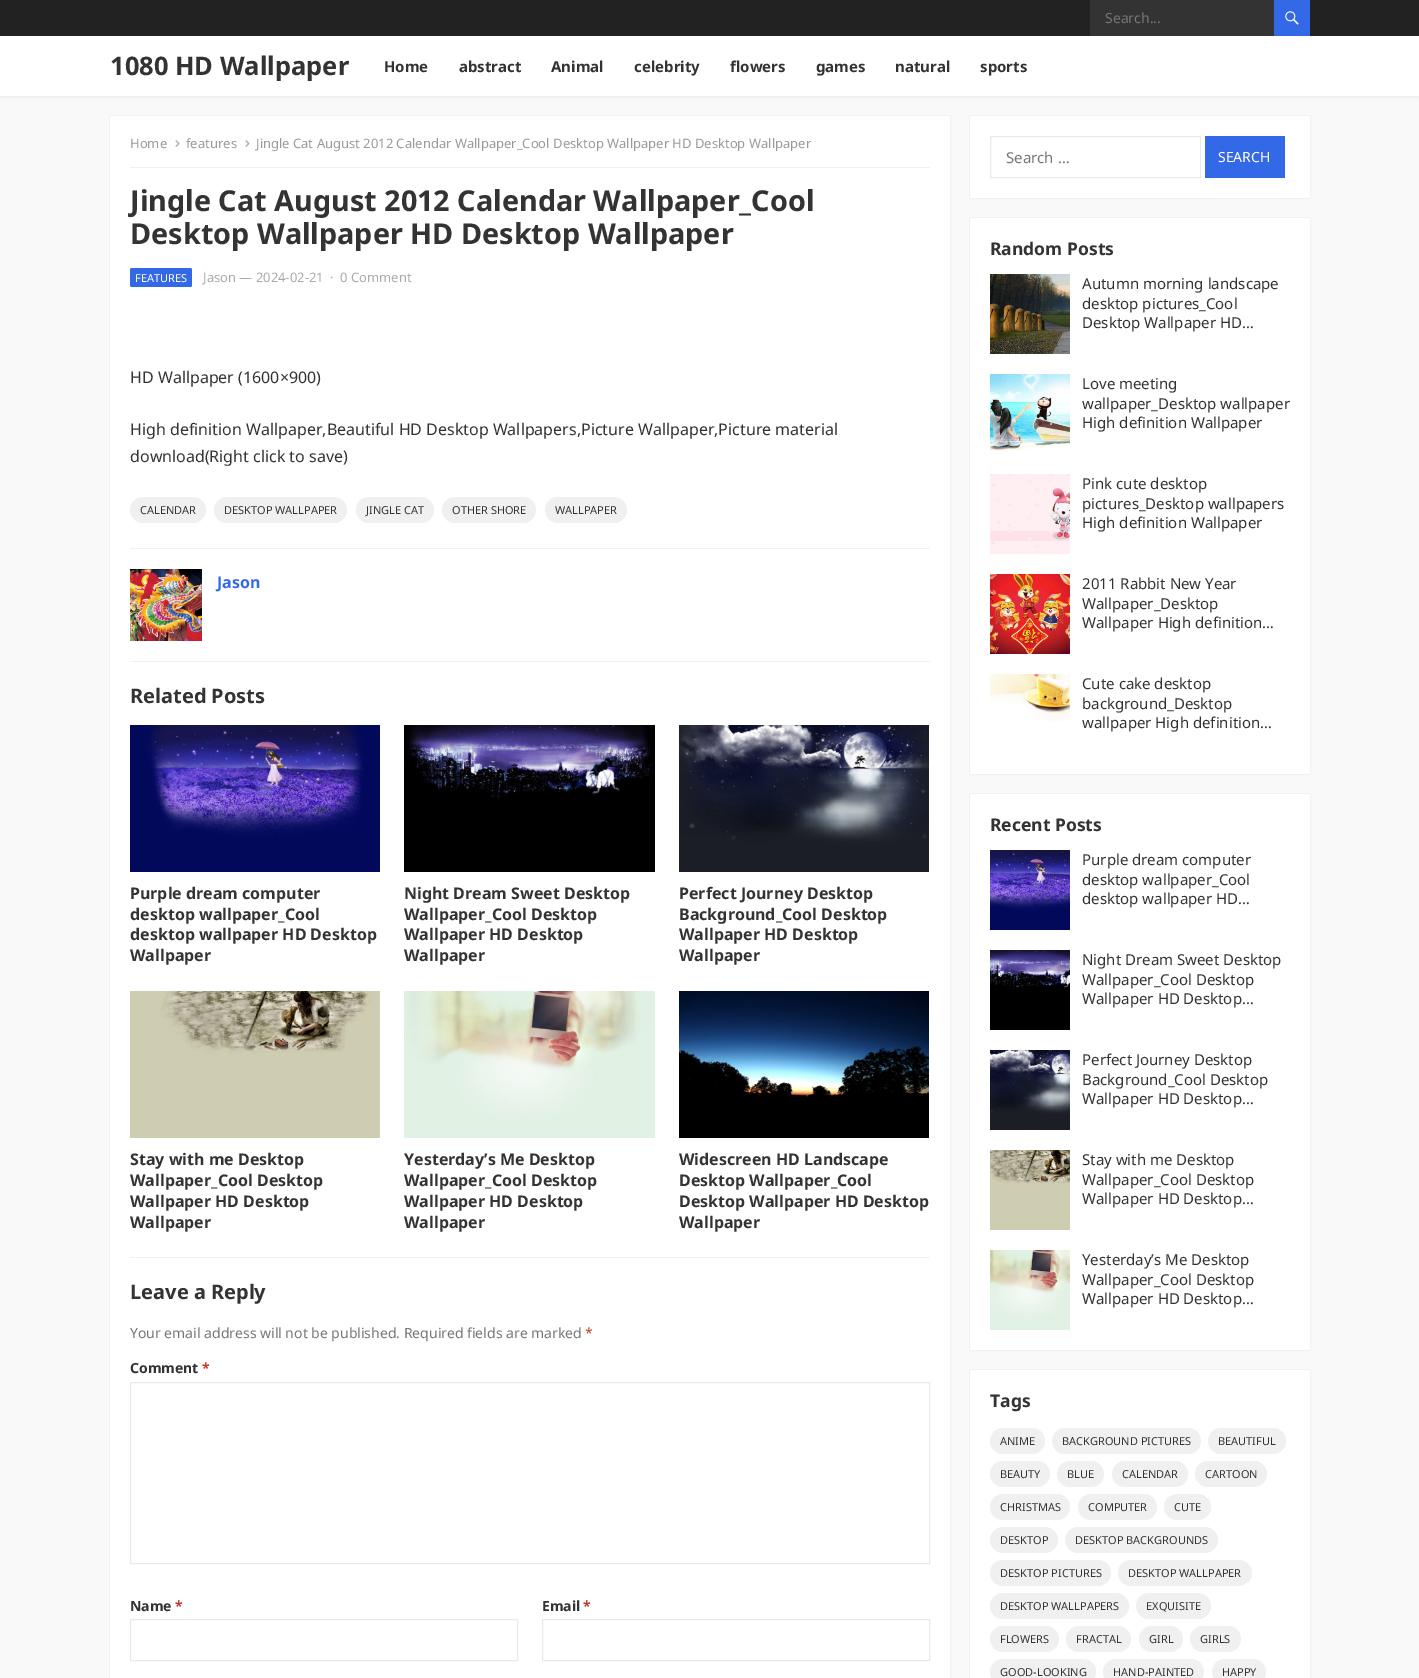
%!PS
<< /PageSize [1419 1678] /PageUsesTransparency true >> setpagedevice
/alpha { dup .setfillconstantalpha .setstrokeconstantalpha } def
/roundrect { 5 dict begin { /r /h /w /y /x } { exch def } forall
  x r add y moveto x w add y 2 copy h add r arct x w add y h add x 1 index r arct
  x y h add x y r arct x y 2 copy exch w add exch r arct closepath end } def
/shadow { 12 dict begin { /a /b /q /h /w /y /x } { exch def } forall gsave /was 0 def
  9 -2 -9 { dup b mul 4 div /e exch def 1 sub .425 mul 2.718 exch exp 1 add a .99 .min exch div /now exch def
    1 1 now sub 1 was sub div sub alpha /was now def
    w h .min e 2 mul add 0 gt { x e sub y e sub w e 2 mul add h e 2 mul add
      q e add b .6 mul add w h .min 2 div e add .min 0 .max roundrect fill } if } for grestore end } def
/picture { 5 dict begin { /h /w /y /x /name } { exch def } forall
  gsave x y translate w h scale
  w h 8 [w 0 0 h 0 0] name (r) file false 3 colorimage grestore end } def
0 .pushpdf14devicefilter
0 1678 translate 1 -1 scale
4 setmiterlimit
0.976 setgray
0 0 1419 1678 rectfill
0.388 setgray
0 1 1419 96 0 1.5 0.1 shadow
1 setgray
0 36 1419 60 rectfill
0.133 setgray
0 0 1419 36 rectfill
0.2 setgray
1090 0 184 36 rectfill
/NotoSans-Regular [14 0 0 -14 0 0] selectfont
0.463 setgray
1105 23 moveto (Search...) show
0.2 0.412 0.906 setrgbcolor
1274 0 36 36 rectfill
(img1.rgb) 1285 11 14 14 picture
/NotoSans-Bold [25.5 0 0 -25.5 0 0] selectfont
0.2 setgray
110 75 moveto (1080 HD Wallpaper) show
/NotoSans-Bold [15 0 0 -15 0 0] selectfont
384 72 moveto (Home) show
459 72 moveto (abstract) show
551 72 moveto (Animal) show
634 72 moveto (celebrity) show
730 72 moveto (flowers) show
816 72 moveto (games) show
895 72 moveto (natural) show
980 72 moveto (sports) show
0.949 setgray
109.5 115.5 841 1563 rectstroke
1 setgray
110 116 840 1562 rectfill
0.941 setgray
130 167 800 1 rectfill
/NotoSans-Regular [13 0 0 -13 0 0] selectfont
0.6 setgray
130 148 moveto (Home) show
(img2.rgb) 175 140 5 7 picture
186 148 moveto (features) show
(img3.rgb) 245 140 5 7 picture
256 148 moveto (Jingle Cat August 2012 Calendar Wallpaper_Cool Desktop Wallpaper HD Desktop Wallpaper) show
/NotoSans-Bold [28.8 0 0 -28.8 0 0] selectfont
0.2 setgray
130 211 moveto (Jingle Cat August 2012 Calendar Wallpaper_Cool) show
130 244 moveto (Desktop Wallpaper HD Desktop Wallpaper) show
0.2 0.412 0.906 setrgbcolor
130 268 62 19 2 roundrect fill
/NotoSans-Regular [11 0 0 -11 0 0] selectfont
1 setgray
135 282 moveto (FEATURES) show
/NotoSans-Regular [13 0 0 -13 0 0] selectfont
0.667 setgray
203 282 moveto (Jason — 2024-02-21) show
330 282 moveto (·) show
340 282 moveto (0 Comment) show
/NotoSans-Regular [16 0 0 -16 0 0] selectfont
0.2 setgray
130 383 moveto (HD Wallpaper \(1600×900\)) show
130 435 moveto (High definition Wallpaper,Beautiful HD Desktop Wallpapers,Picture Wallpaper,Picture material) show
130 462 moveto (download\(Right click to save\)) show
0.941 setgray
130 497 76 26 13 roundrect fill
/NotoSans-Regular [11 0 0 -11 0 0] selectfont
0.2 setgray
140 514 moveto (CALENDAR) show
0.941 setgray
214 497 133 26 13 roundrect fill
0.2 setgray
224 514 moveto (DESKTOP WALLPAPER) show
0.941 setgray
356 497 78 26 13 roundrect fill
0.2 setgray
366 514 moveto (JINGLE CAT) show
0.941 setgray
442 497 94 26 13 roundrect fill
0.2 setgray
452 514 moveto (OTHER SHORE) show
0.941 setgray
545 497 82 26 13 roundrect fill
0.2 setgray
555 514 moveto (WALLPAPER) show
0.941 setgray
130 548 800 1 rectfill
(img4.rgb) 130 569 72 72 picture
/NotoSans-Bold [16 0 0 -16 0 0] selectfont
0.2 0.412 0.906 setrgbcolor
217 588 moveto (Jason) show
0.941 setgray
130 661 800 1 rectfill
/NotoSans-Bold [20 0 0 -20 0 0] selectfont
0.2 setgray
130 703 moveto (Related Posts) show
(img5.rgb) 130 725 250 147 picture
/NotoSans-Bold [16 0 0 -16 0 0] selectfont
130 899 moveto (Purple dream computer) show
130 920 moveto (desktop wallpaper_Cool) show
130 940 moveto (desktop wallpaper HD Desktop) show
130 961 moveto (Wallpaper) show
(img6.rgb) 404 725 251 147 picture
404 899 moveto (Night Dream Sweet Desktop) show
404 920 moveto (Wallpaper_Cool Desktop) show
404 940 moveto (Wallpaper HD Desktop) show
404 961 moveto (Wallpaper) show
(img7.rgb) 679 725 250 147 picture
679 899 moveto (Perfect Journey Desktop) show
679 920 moveto (Background_Cool Desktop) show
679 940 moveto (Wallpaper HD Desktop) show
679 961 moveto (Wallpaper) show
(img8.rgb) 130 991 250 147 picture
130 1165 moveto (Stay with me Desktop) show
130 1186 moveto (Wallpaper_Cool Desktop) show
130 1207 moveto (Wallpaper HD Desktop) show
130 1228 moveto (Wallpaper) show
(img9.rgb) 404 991 251 147 picture
404 1165 moveto (Yesterday’s Me Desktop) show
404 1186 moveto (Wallpaper_Cool Desktop) show
404 1207 moveto (Wallpaper HD Desktop) show
404 1228 moveto (Wallpaper) show
(img10.rgb) 679 991 250 147 picture
679 1165 moveto (Widescreen HD Landscape) show
679 1186 moveto (Desktop Wallpaper_Cool) show
679 1207 moveto (Desktop Wallpaper HD Desktop) show
679 1228 moveto (Wallpaper) show
0.941 setgray
130 1257 800 1 rectfill
/NotoSans-Bold [20 0 0 -20 0 0] selectfont
0.2 setgray
130 1299 moveto (Leave a Reply) show
/NotoSans-Regular [14 0 0 -14 0 0] selectfont
0.463 setgray
130 1338 moveto (Your email address will not be published. Required fields are marked) show
0.753 0.224 0.169 setrgbcolor
585 1338 moveto (*) show
/NotoSans-Bold [14 0 0 -14 0 0] selectfont
0.2 setgray
130 1373 moveto (Comment) show
0.753 0.224 0.169 setrgbcolor
202 1373 moveto (*) show
0.914 setgray
130.5 1382.5 799 181 rectstroke
0.2 setgray
130 1611 moveto (Name) show
0.753 0.224 0.169 setrgbcolor
175 1611 moveto (*) show
0.914 setgray
130.5 1619.5 387 41 rectstroke
0.2 setgray
542 1611 moveto (Email) show
0.753 0.224 0.169 setrgbcolor
583 1611 moveto (*) show
0.914 setgray
542.5 1619.5 387 41 rectstroke
0.949 setgray
969.5 115.5 341 83 rectstroke
1 setgray
970 116 340 82 rectfill
0.914 setgray
990.5 136.5 210 41 rectstroke
/NotoSans-Regular [15 0 0 -15 0 0] selectfont
0.463 setgray
1006 163 moveto (Search …) show
0.2 0.412 0.906 setrgbcolor
1205 136 80 42 rectfill
/NotoSans-Regular [14 0 0 -14 0 0] selectfont
1 setgray
1218 162 moveto (SEARCH) show
0.949 setgray
969.5 217.5 341 557 rectstroke
1 setgray
970 218 340 556 rectfill
/NotoSans-Bold [17.5 0 0 -17.5 0 0] selectfont
0.2 setgray
990 255 moveto (Random Posts) show
(img11.rgb) 990 274 80 80 picture
/NotoSans-Regular [15 0 0 -15 0 0] selectfont
1082 289 moveto (Autumn morning landscape) show
1082 309 moveto (desktop pictures_Cool) show
1082 328 moveto (Desktop Wallpaper HD…) show
(img12.rgb) 990 374 80 77 picture
1082 389 moveto (Love meeting) show
1082 409 moveto (wallpaper_Desktop wallpaper) show
1082 428 moveto (High definition Wallpaper) show
(img13.rgb) 990 474 80 80 picture
1082 489 moveto (Pink cute desktop) show
1082 509 moveto (pictures_Desktop wallpapers) show
1082 528 moveto (High definition Wallpaper) show
(img14.rgb) 990 574 80 80 picture
1082 589 moveto (2011 Rabbit New Year) show
1082 609 moveto (Wallpaper_Desktop) show
1082 628 moveto (Wallpaper High definition…) show
(img15.rgb) 990 674 80 48 picture
1082 689 moveto (Cute cake desktop) show
1082 709 moveto (background_Desktop) show
1082 728 moveto (wallpaper High definition…) show
0.949 setgray
969.5 793.5 341 557 rectstroke
1 setgray
970 794 340 556 rectfill
/NotoSans-Bold [17.5 0 0 -17.5 0 0] selectfont
0.2 setgray
990 831 moveto (Recent Posts) show
(img16.rgb) 990 850 80 80 picture
/NotoSans-Regular [15 0 0 -15 0 0] selectfont
1082 865 moveto (Purple dream computer) show
1082 885 moveto (desktop wallpaper_Cool) show
1082 904 moveto (desktop wallpaper HD…) show
(img17.rgb) 990 950 80 80 picture
1082 965 moveto (Night Dream Sweet Desktop) show
1082 985 moveto (Wallpaper_Cool Desktop) show
1082 1004 moveto (Wallpaper HD Desktop…) show
(img18.rgb) 990 1050 80 80 picture
1082 1065 moveto (Perfect Journey Desktop) show
1082 1085 moveto (Background_Cool Desktop) show
1082 1104 moveto (Wallpaper HD Desktop…) show
(img19.rgb) 990 1150 80 80 picture
1082 1165 moveto (Stay with me Desktop) show
1082 1185 moveto (Wallpaper_Cool Desktop) show
1082 1204 moveto (Wallpaper HD Desktop…) show
(img20.rgb) 990 1250 80 80 picture
1082 1265 moveto (Yesterday’s Me Desktop) show
1082 1285 moveto (Wallpaper_Cool Desktop) show
1082 1304 moveto (Wallpaper HD Desktop…) show
0.949 setgray
969.5 1369.5 341 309 rectstroke
1 setgray
970 1370 340 308 rectfill
/NotoSans-Bold [17.5 0 0 -17.5 0 0] selectfont
0.2 setgray
990 1407 moveto (Tags) show
0.941 setgray
990 1428 55 26 13 roundrect fill
/NotoSans-Regular [11 0 0 -11 0 0] selectfont
0.2 setgray
1000 1445 moveto (ANIME) show
0.941 setgray
1052 1428 149 26 13 roundrect fill
0.2 setgray
1062 1445 moveto (BACKGROUND PICTURES) show
0.941 setgray
1208 1428 78 26 13 roundrect fill
0.2 setgray
1218 1445 moveto (BEAUTIFUL) show
0.941 setgray
990 1461 60 26 13 roundrect fill
0.2 setgray
1000 1478 moveto (BEAUTY) show
0.941 setgray
1057 1461 47 26 13 roundrect fill
0.2 setgray
1067 1478 moveto (BLUE) show
0.941 setgray
1112 1461 76 26 13 roundrect fill
0.2 setgray
1122 1478 moveto (CALENDAR) show
0.941 setgray
1195 1461 72 26 13 roundrect fill
0.2 setgray
1205 1478 moveto (CARTOON) show
0.941 setgray
990 1494 80 26 13 roundrect fill
0.2 setgray
1000 1511 moveto (CHRISTMAS) show
0.941 setgray
1078 1494 79 26 13 roundrect fill
0.2 setgray
1088 1511 moveto (COMPUTER) show
0.941 setgray
1164 1494 47 26 13 roundrect fill
0.2 setgray
1174 1511 moveto (CUTE) show
0.941 setgray
990 1527 68 26 13 roundrect fill
0.2 setgray
1000 1544 moveto (DESKTOP) show
0.941 setgray
1065 1527 153 26 13 roundrect fill
0.2 setgray
1075 1544 moveto (DESKTOP BACKGROUNDS) show
0.941 setgray
990 1560 121 26 13 roundrect fill
0.2 setgray
1000 1577 moveto (DESKTOP PICTURES) show
0.941 setgray
1118 1560 134 26 13 roundrect fill
0.2 setgray
1128 1577 moveto (DESKTOP WALLPAPER) show
0.941 setgray
990 1593 139 26 13 roundrect fill
0.2 setgray
1000 1610 moveto (DESKTOP WALLPAPERS) show
0.941 setgray
1136 1593 75 26 13 roundrect fill
0.2 setgray
1146 1610 moveto (EXQUISITE) show
0.941 setgray
990 1626 69 26 13 roundrect fill
0.2 setgray
1000 1643 moveto (FLOWERS) show
0.941 setgray
1066 1626 65 26 13 roundrect fill
0.2 setgray
1076 1643 moveto (FRACTAL) show
0.941 setgray
1139 1626 44 26 13 roundrect fill
0.2 setgray
1149 1643 moveto (GIRL) show
0.941 setgray
1190 1626 51 26 13 roundrect fill
0.2 setgray
1200 1643 moveto (GIRLS) show
0.941 setgray
990 1659 106 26 13 roundrect fill
0.2 setgray
1000 1676 moveto (GOOD-LOOKING) show
0.941 setgray
1103 1659 101 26 13 roundrect fill
0.2 setgray
1113 1676 moveto (HAND-PAINTED) show
0.941 setgray
1212 1659 54 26 13 roundrect fill
0.2 setgray
1222 1676 moveto (HAPPY) show
.poppdf14devicefilter showpage
